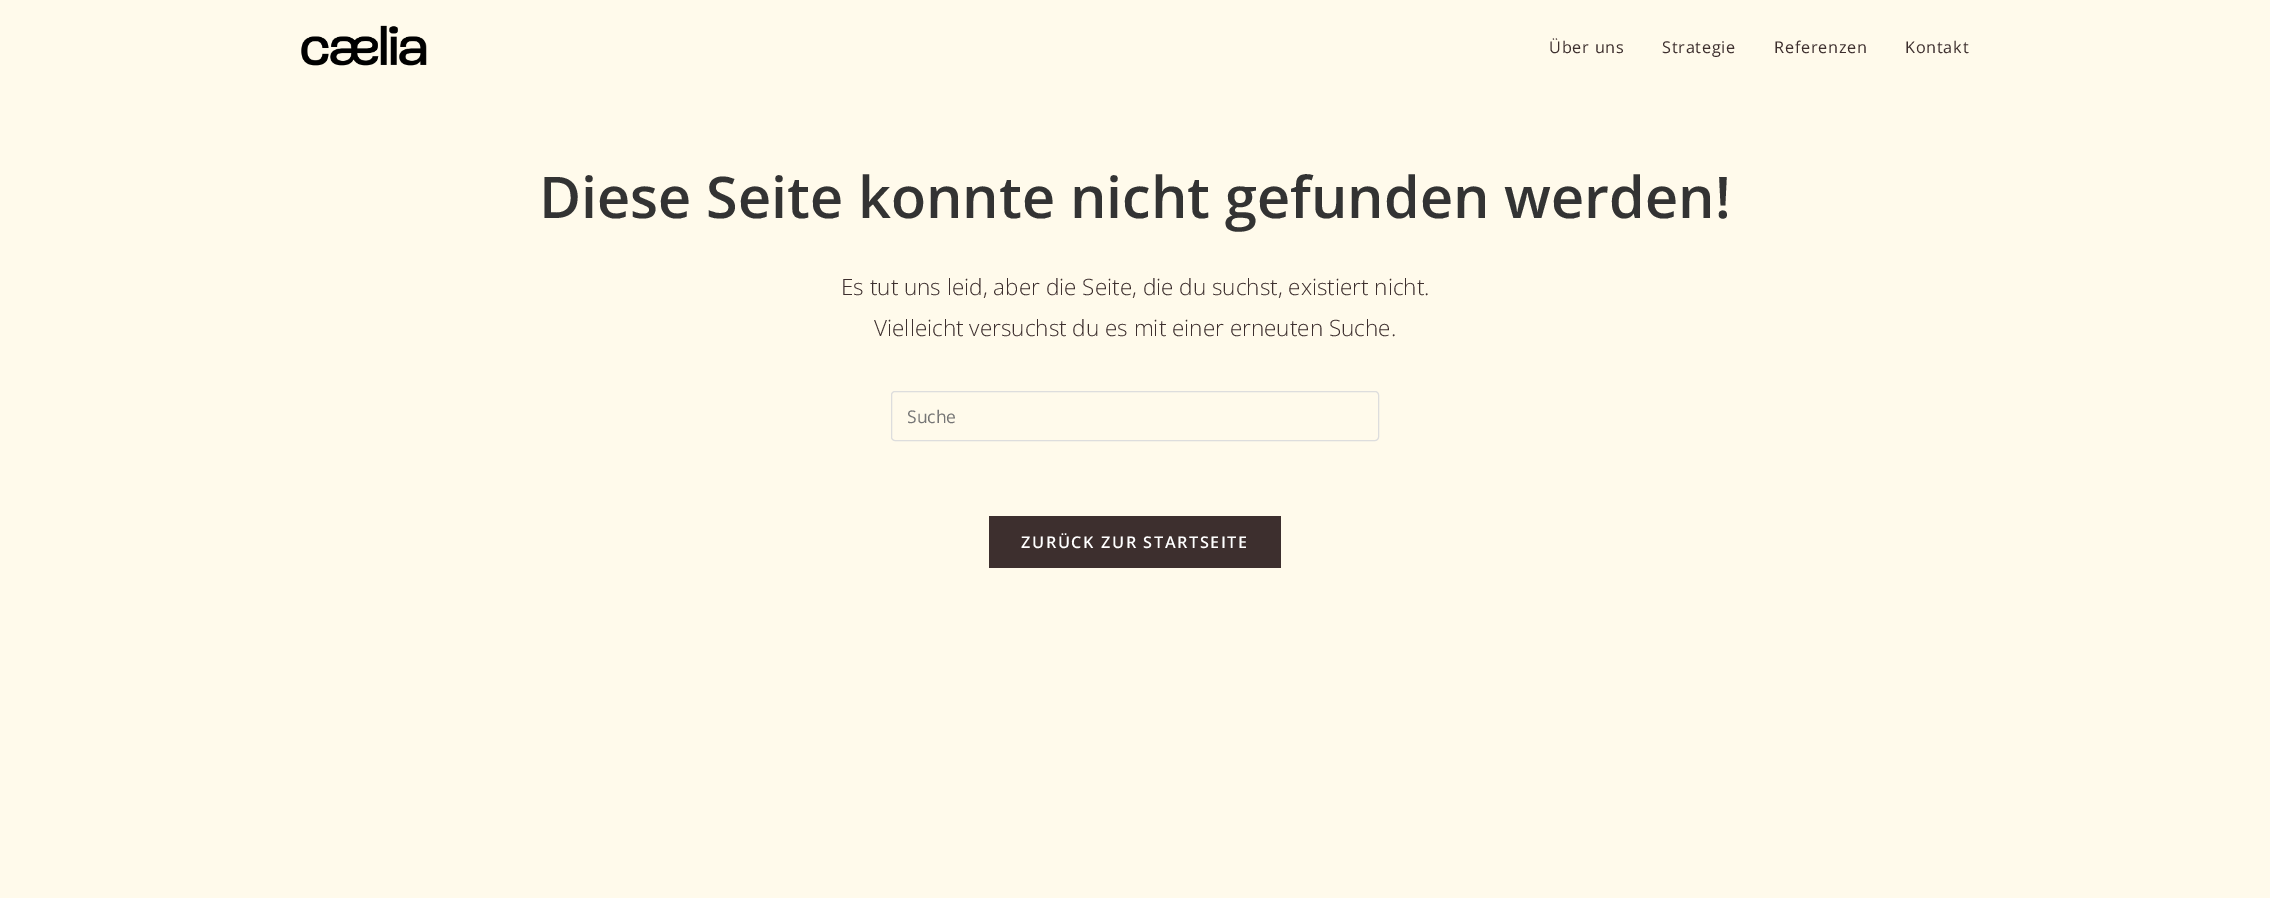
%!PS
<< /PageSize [2270 898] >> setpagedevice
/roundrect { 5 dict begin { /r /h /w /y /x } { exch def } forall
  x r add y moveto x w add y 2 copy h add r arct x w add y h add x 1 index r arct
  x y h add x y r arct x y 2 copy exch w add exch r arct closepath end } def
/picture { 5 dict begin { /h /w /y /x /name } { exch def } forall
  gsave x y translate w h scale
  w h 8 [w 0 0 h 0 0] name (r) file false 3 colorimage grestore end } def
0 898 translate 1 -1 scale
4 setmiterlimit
1 0.98 0.922 setrgbcolor
0 0 2270 898 rectfill
(img1.rgb) 301 25 126 41 picture
/OpenSans-Regular [16.25 0 0 -16.25 0 0] selectfont
0.239 0.184 0.18 setrgbcolor
1549 53 moveto 0.75 0 (Über uns) ashow
1662 53 moveto 0.75 0 (Strategie) ashow
1774 53 moveto 0.75 0 (Referenzen) ashow
1905 53 moveto 0.75 0 (Kontakt) ashow
/OpenSans-SemiBold [57.5 0 0 -57.5 0 0] selectfont
0.2 setgray
539 218 moveto (Diese Seite konnte nicht gefunden werden!) show
/OpenSans-Light [22.5 0 0 -22.5 0 0] selectfont
0.239 0.184 0.18 setrgbcolor
841 295 moveto (Es tut uns leid, aber die Seite, die du suchst, existiert nicht.) show
874 336 moveto (Vielleicht versuchst du es mit einer erneuten Suche.) show
0.867 setgray
891.5 391.5 487 49 3.5 roundrect stroke
/OpenSans-Regular [17.5 0 0 -17.5 0 0] selectfont
0.459 setgray
907 423 moveto (Suche) show
0.239 0.184 0.18 setrgbcolor
989 516 292 52 rectfill
/OpenSans-SemiBold [16.25 0 0 -16.25 0 0] selectfont
1 setgray
1021 548 moveto 1.6 0 (ZURÜCK ZUR STARTSEITE) ashow
showpage
